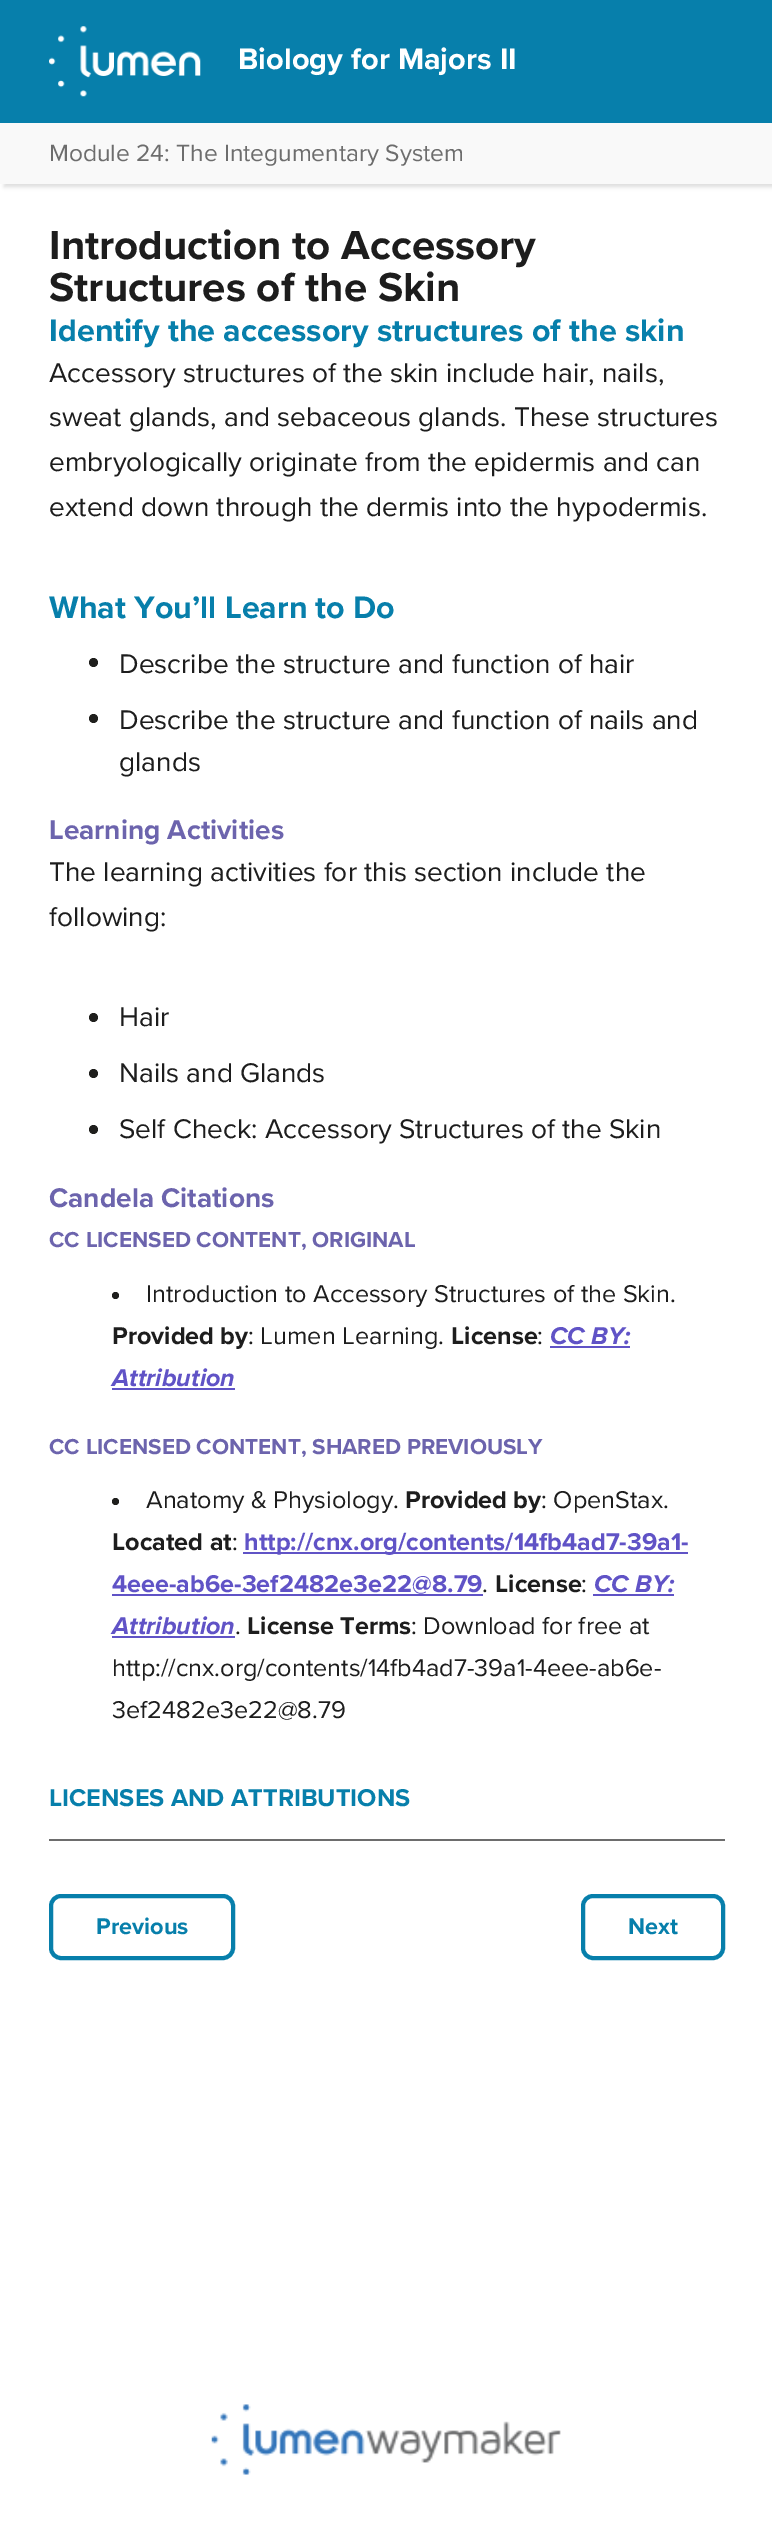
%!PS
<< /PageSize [772 2526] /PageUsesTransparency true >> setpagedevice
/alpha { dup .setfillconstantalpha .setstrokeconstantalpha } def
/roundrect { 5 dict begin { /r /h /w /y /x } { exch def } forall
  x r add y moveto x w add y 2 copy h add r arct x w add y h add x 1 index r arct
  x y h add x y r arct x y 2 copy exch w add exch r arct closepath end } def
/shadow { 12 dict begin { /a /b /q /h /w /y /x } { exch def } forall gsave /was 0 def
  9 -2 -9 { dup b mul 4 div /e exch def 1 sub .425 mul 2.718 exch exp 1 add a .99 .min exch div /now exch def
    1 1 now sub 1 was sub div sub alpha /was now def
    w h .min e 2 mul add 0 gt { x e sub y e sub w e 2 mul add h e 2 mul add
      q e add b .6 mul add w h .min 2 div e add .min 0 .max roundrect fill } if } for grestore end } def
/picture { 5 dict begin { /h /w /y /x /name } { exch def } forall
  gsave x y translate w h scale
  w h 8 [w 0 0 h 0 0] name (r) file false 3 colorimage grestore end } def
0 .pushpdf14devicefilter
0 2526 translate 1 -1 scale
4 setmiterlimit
1 setgray
0 0 772 2526 rectfill
0.867 setgray
4 126 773 61 0 2 1 shadow
0.027 0.498 0.671 setrgbcolor
0 0 772 123 rectfill
(img1.rgb) 49 26 152 71 picture
/ProximaNova-Bold [30.75 0 0 -30.75 0 0] selectfont
1 setgray
238 69 moveto (Biology for Majors II) show
0.976 setgray
0 123 772 61 rectfill
/ProximaNova-Regular [24.5 0 0 -24.5 0 0] selectfont
0.427 setgray
49 161 moveto (Module 24: The Integumentary System) show
/ProximaNova-Bold [42 0 0 -42 0 0] selectfont
0.114 setgray
49 259 moveto (Introduction to Accessory) show
49 301 moveto (Structures of the Skin) show
/ProximaNova-Bold [32.25 0 0 -32.25 0 0] selectfont
0.027 0.498 0.671 setrgbcolor
49 341 moveto (Identify the accessory structures of the skin) show
/ProximaNova-Regular [28 0 0 -28 0 0] selectfont
0.114 setgray
49 382 moveto (Accessory structures of the skin include hair, nails,) show
49 426 moveto (sweat glands, and sebaceous glands. These structures) show
49 471 moveto (embryologically originate from the epidermis and can) show
49 516 moveto (extend down through the dermis into the hypodermis.) show
/ProximaNova-Bold [32.25 0 0 -32.25 0 0] selectfont
0.027 0.498 0.671 setrgbcolor
49 618 moveto (What You’ll Learn to Do) show
0.122 0.122 0.114 setrgbcolor
newpath 93.5 662.5 4.5 0 360 arc closepath fill
/ProximaNova-Regular [28 0 0 -28 0 0] selectfont
0.114 setgray
119 673 moveto (Describe the structure and function of hair) show
0.122 0.122 0.114 setrgbcolor
newpath 93.5 718.5 4.5 0 360 arc closepath fill
0.114 setgray
119 729 moveto (Describe the structure and function of nails and) show
119 771 moveto (glands) show
/ProximaNova-Bold [28 0 0 -28 0 0] selectfont
0.424 0.392 0.678 setrgbcolor
49 839 moveto (Learning Activities) show
/ProximaNova-Regular [28 0 0 -28 0 0] selectfont
0.114 setgray
49 881 moveto (The learning activities for this section include the) show
49 926 moveto (following:) show
0.122 0.122 0.114 setrgbcolor
newpath 93.5 1017.5 4.5 0 360 arc closepath fill
0.114 setgray
119 1026 moveto (Hair) show
0.122 0.122 0.114 setrgbcolor
newpath 93.5 1073.5 4.5 0 360 arc closepath fill
0.114 setgray
119 1082 moveto (Nails and Glands) show
0.122 0.122 0.114 setrgbcolor
newpath 93.5 1129.5 4.5 0 360 arc closepath fill
0.114 setgray
119 1138 moveto (Self Check: Accessory Structures of the Skin) show
/ProximaNova-Bold [28 0 0 -28 0 0] selectfont
0.424 0.392 0.678 setrgbcolor
49 1207 moveto (Candela Citations) show
/ProximaNova-Bold [22.4 0 0 -22.4 0 0] selectfont
49 1247 moveto (CC LICENSED CONTENT, ORIGINAL) show
0.122 0.122 0.114 setrgbcolor
newpath 115.5 1295.5 3.5 0 360 arc closepath fill
/ProximaNova-Regular [25.2 0 0 -25.2 0 0] selectfont
0.114 setgray
146 1302 moveto (Introduction to Accessory Structures of the Skin.) show
/ProximaNova-Bold [25.2 0 0 -25.2 0 0] selectfont
112 1344 moveto (Provided by) show
/ProximaNova-Regular [25.2 0 0 -25.2 0 0] selectfont
248 1344 moveto (: Lumen Learning.) show
/ProximaNova-Bold [25.2 0 0 -25.2 0 0] selectfont
451 1344 moveto (License) show
/ProximaNova-Regular [25.2 0 0 -25.2 0 0] selectfont
537 1344 moveto (:) show
/ProximaNova-BoldItalic [25.2 0 0 -25.2 0 0] selectfont
0.376 0.325 0.776 setrgbcolor
550 1344 moveto (CC BY:) show
550 1346 80 2 rectfill
112 1386 moveto (Attribution) show
112 1388 123 2 rectfill
/ProximaNova-Bold [22.4 0 0 -22.4 0 0] selectfont
0.424 0.392 0.678 setrgbcolor
49 1454 moveto (CC LICENSED CONTENT, SHARED PREVIOUSLY) show
0.122 0.122 0.114 setrgbcolor
newpath 115.5 1501.5 3.5 0 360 arc closepath fill
/ProximaNova-Regular [25.2 0 0 -25.2 0 0] selectfont
0.114 setgray
146 1508 moveto (Anatomy & Physiology.) show
/ProximaNova-Bold [25.2 0 0 -25.2 0 0] selectfont
405 1508 moveto (Provided by) show
/ProximaNova-Regular [25.2 0 0 -25.2 0 0] selectfont
541 1508 moveto (: OpenStax.) show
/ProximaNova-Bold [25.2 0 0 -25.2 0 0] selectfont
112 1550 moveto (Located at) show
/ProximaNova-Regular [25.2 0 0 -25.2 0 0] selectfont
232 1550 moveto (:) show
0.376 0.325 0.776 setrgbcolor
243 1552 445 2 rectfill
/ProximaNova-Bold [25.2 0 0 -25.2 0 0] selectfont
244 1550 moveto (http://cnx.org/contents/14fb4ad7-39a1-) show
112 1592 moveto (4eee-ab6e-3ef2482e3e22@8.79) show
112 1594 371 2 rectfill
/ProximaNova-Regular [25.2 0 0 -25.2 0 0] selectfont
0.114 setgray
482 1592 moveto (.) show
/ProximaNova-Bold [25.2 0 0 -25.2 0 0] selectfont
495 1592 moveto (License) show
/ProximaNova-Regular [25.2 0 0 -25.2 0 0] selectfont
581 1592 moveto (:) show
/ProximaNova-BoldItalic [25.2 0 0 -25.2 0 0] selectfont
0.376 0.325 0.776 setrgbcolor
594 1592 moveto (CC BY:) show
593 1594 81 2 rectfill
112 1634 moveto (Attribution) show
112 1636 123 2 rectfill
/ProximaNova-Regular [25.2 0 0 -25.2 0 0] selectfont
0.114 setgray
235 1634 moveto (.) show
/ProximaNova-Bold [25.2 0 0 -25.2 0 0] selectfont
247 1634 moveto (License Terms) show
/ProximaNova-Regular [25.2 0 0 -25.2 0 0] selectfont
411 1634 moveto (: Download for free at) show
112 1676 moveto (http://cnx.org/contents/14fb4ad7-39a1-4eee-ab6e-) show
112 1718 moveto (3ef2482e3e22@8.79) show
/ProximaNova-Bold [25.2 0 0 -25.2 0 0] selectfont
0.027 0.498 0.671 setrgbcolor
49 1806 moveto (LICENSES AND ATTRIBUTIONS) show
0.427 setgray
49 1839 676 2 rectfill
0.027 0.498 0.671 setrgbcolor
4 setlinewidth
51 1896 182 62 10 roundrect stroke
/ProximaNova-Bold [23.5 0 0 -23.5 0 0] selectfont
96 1934 moveto (Previous) show
583 1896 140 62 10 roundrect stroke
628 1934 moveto (Next) show
(img2.rgb) 211 2404 350 71 picture
.poppdf14devicefilter showpage
